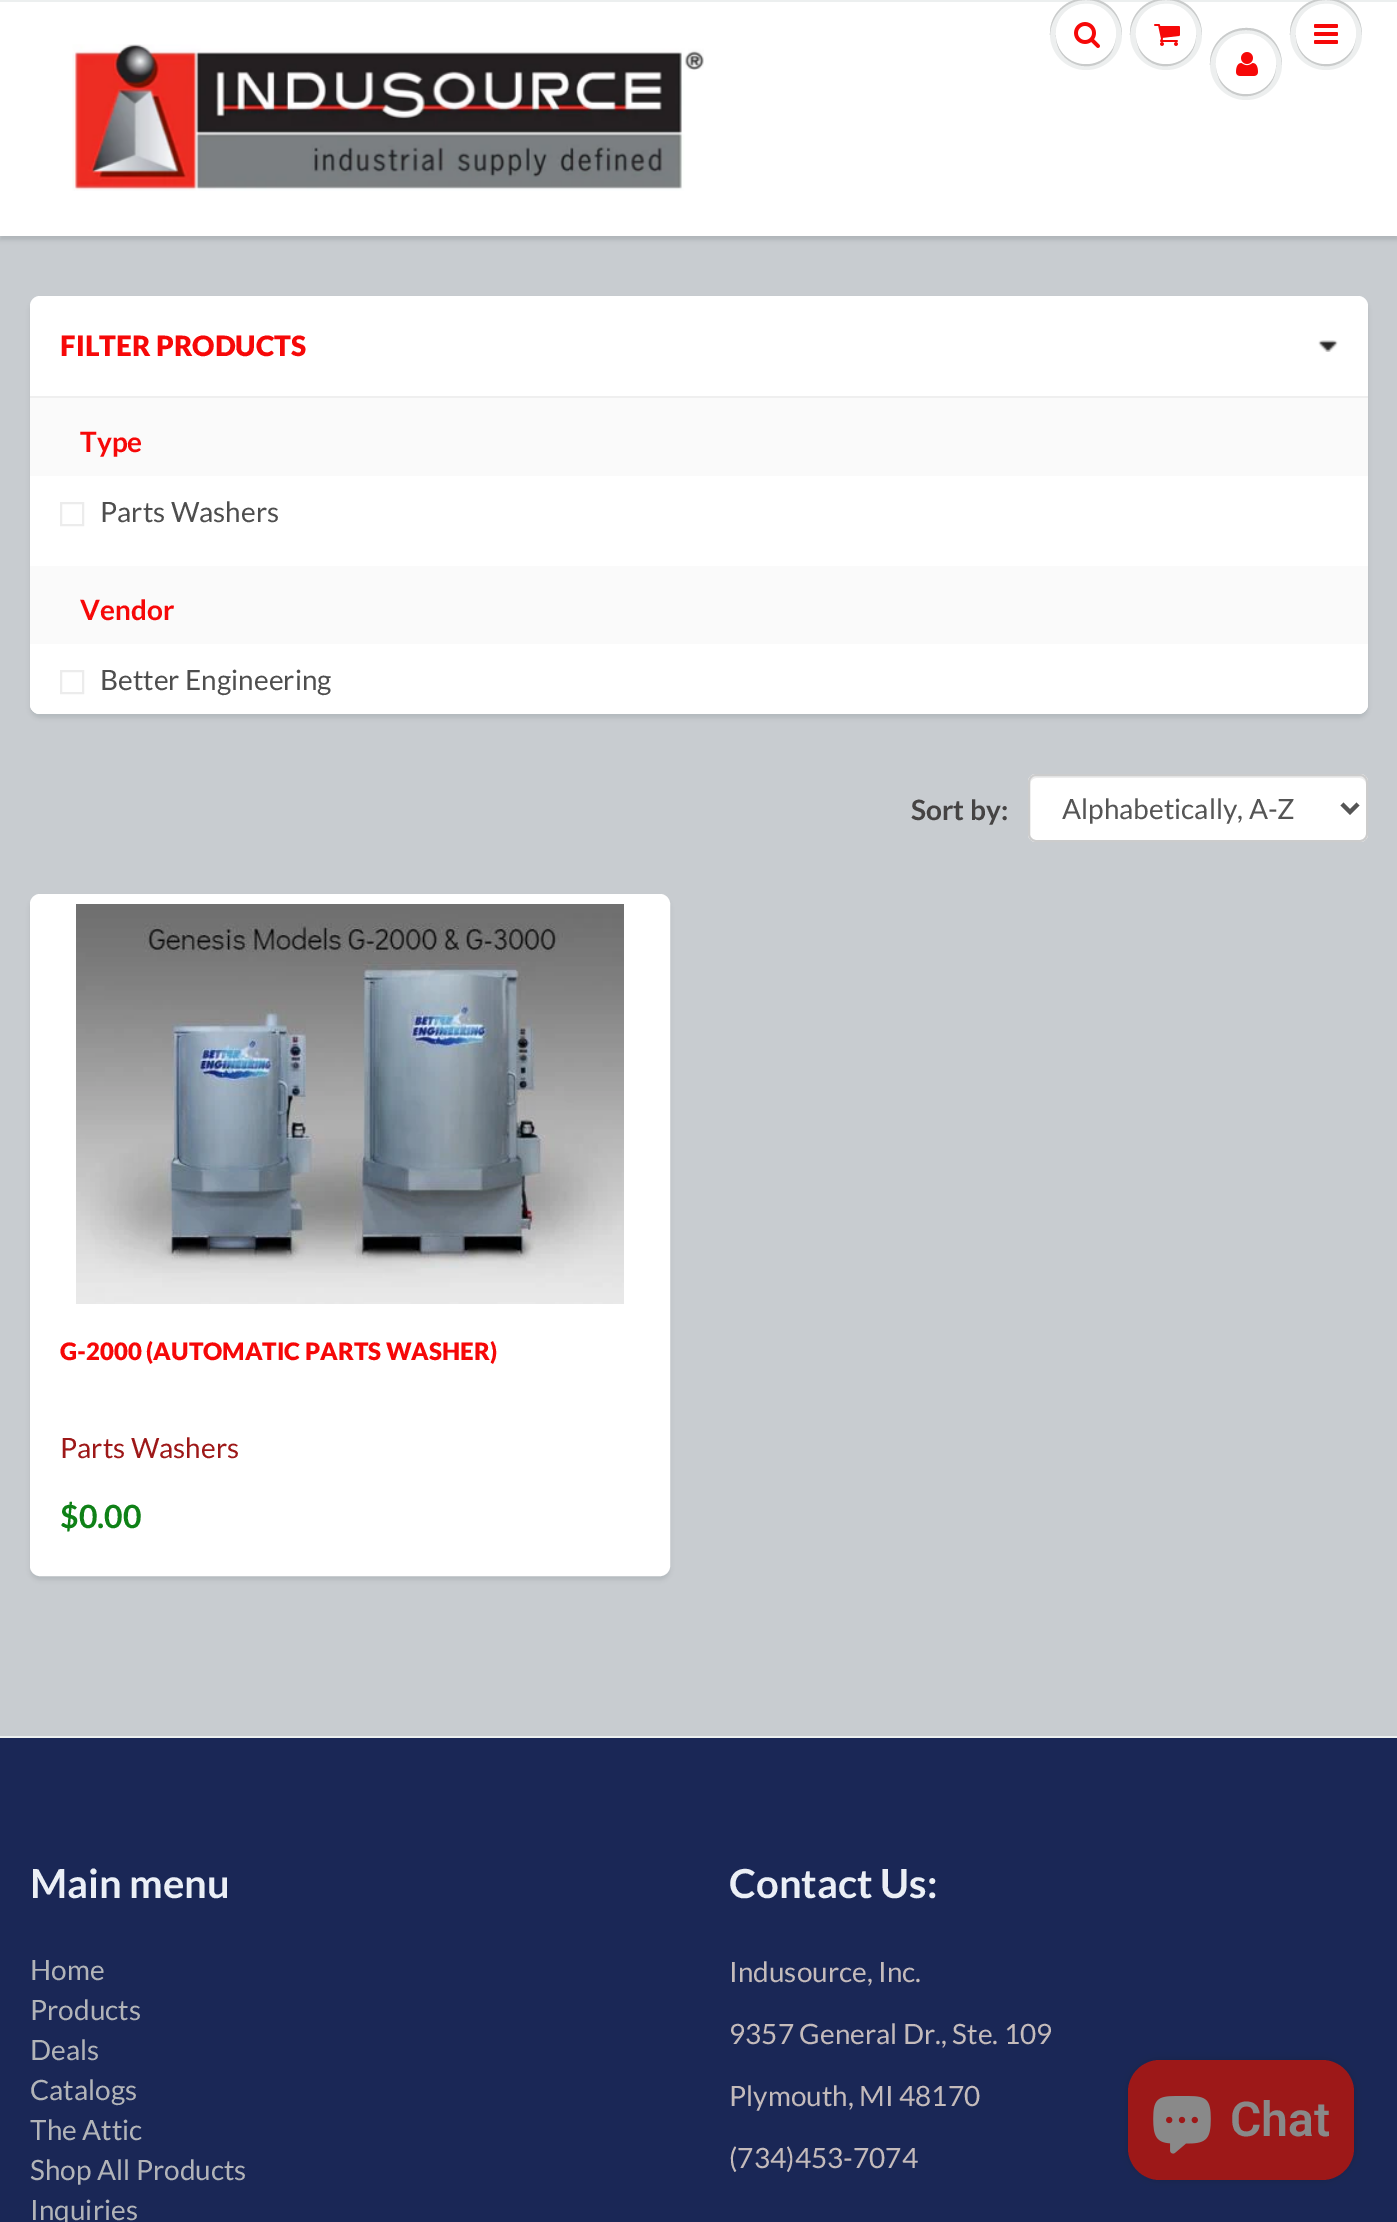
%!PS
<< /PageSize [1397 2222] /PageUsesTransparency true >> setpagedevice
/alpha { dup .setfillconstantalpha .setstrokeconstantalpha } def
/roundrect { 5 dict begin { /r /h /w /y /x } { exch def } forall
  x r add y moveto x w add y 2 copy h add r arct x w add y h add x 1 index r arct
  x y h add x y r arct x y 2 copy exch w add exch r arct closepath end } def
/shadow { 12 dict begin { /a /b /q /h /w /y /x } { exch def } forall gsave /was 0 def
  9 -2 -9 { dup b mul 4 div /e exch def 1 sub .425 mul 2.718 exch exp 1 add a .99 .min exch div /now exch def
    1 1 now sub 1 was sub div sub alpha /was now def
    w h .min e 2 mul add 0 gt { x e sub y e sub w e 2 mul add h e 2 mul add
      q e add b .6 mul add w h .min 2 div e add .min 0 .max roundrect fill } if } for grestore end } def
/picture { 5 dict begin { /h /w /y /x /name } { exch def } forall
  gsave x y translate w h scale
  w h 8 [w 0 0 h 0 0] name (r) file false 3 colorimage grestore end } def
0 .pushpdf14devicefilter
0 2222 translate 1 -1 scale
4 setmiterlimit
0.784 0.8 0.816 setrgbcolor
0 0 1397 2222 rectfill
0.043 0.098 0.11 setrgbcolor
0 4 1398 236 0 2 0.12 shadow
1 setgray
0 2 1397 234 rectfill
0.925 0.937 0.937 setrgbcolor
0 0 1397 2 rectfill
(img1.rgb) 72 44 632 147 picture
0.929 0.937 0.937 setrgbcolor
newpath 1086 34 36 0 360 arc closepath fill
0.788 0.796 0.796 setrgbcolor
newpath 1116 35 moveto 1115 51 1102 64 1086 64 curveto 1070 64 1057 51 1056 35 curveto 1055 65 1094 78 1111 53 curveto 1114 48 1116 41 1116 35 curveto closepath fill
newpath 1086 0 moveto 1106 0 1121 15 1122 35 curveto 1122 28 1120 20 1116 14 curveto 1096 -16 1049 -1 1050 35 curveto 1051 15 1066 0 1086 0 curveto closepath fill
1 setgray
newpath 1086 34 30 0 360 arc closepath fill
newpath 1086 6 moveto 1103 6 1115 18 1116 35 curveto 1116 29 1114 22 1111 17 curveto 1094 -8 1055 5 1056 35 curveto 1057 18 1069 6 1086 6 curveto closepath fill
(img2.rgb) 1074 22 26 26 picture
0.929 0.937 0.937 setrgbcolor
newpath 1166 34 36 0 360 arc closepath fill
0.788 0.796 0.796 setrgbcolor
newpath 1196 35 moveto 1195 51 1182 64 1166 64 curveto 1150 64 1137 51 1136 35 curveto 1136 41 1138 48 1141 53 curveto 1158 78 1197 65 1196 35 curveto closepath fill
newpath 1166 0 moveto 1186 0 1201 15 1202 35 curveto 1202 28 1200 20 1196 14 curveto 1176 -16 1129 -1 1130 35 curveto 1131 15 1146 0 1166 0 curveto closepath fill
1 setgray
newpath 1166 34 30 0 360 arc closepath fill
newpath 1166 6 moveto 1183 6 1195 18 1196 35 curveto 1196 29 1194 22 1191 17 curveto 1174 -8 1135 5 1136 35 curveto 1137 18 1149 6 1166 6 curveto closepath fill
(img3.rgb) 1154 24 26 22 picture
0.929 0.937 0.937 setrgbcolor
newpath 1246 64 36 0 360 arc closepath fill
0.788 0.796 0.796 setrgbcolor
newpath 1276 65 moveto 1275 81 1262 94 1246 94 curveto 1230 94 1217 81 1216 65 curveto 1216 71 1218 78 1221 83 curveto 1238 108 1277 95 1276 65 curveto closepath fill
newpath 1246 30 moveto 1266 30 1281 45 1282 65 curveto 1282 58 1280 50 1276 44 curveto 1256 14 1209 29 1210 65 curveto 1211 45 1226 30 1246 30 curveto closepath fill
1 setgray
newpath 1246 64 30 0 360 arc closepath fill
newpath 1246 36 moveto 1263 36 1275 48 1276 65 curveto 1276 59 1274 52 1271 47 curveto 1254 22 1215 35 1216 65 curveto 1217 48 1229 36 1246 36 curveto closepath fill
(img4.rgb) 1236 52 22 24 picture
0.929 0.937 0.937 setrgbcolor
newpath 1326 34 36 0 360 arc closepath fill
0.788 0.796 0.796 setrgbcolor
newpath 1356 35 moveto 1355 51 1342 64 1326 64 curveto 1310 64 1297 51 1296 35 curveto 1295 65 1334 78 1351 53 curveto 1354 48 1356 41 1356 35 curveto closepath fill
newpath 1326 0 moveto 1346 0 1361 15 1362 35 curveto 1362 28 1360 20 1356 14 curveto 1336 -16 1289 -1 1290 35 curveto 1291 15 1306 0 1326 0 curveto closepath fill
1 setgray
newpath 1326 34 30 0 360 arc closepath fill
newpath 1326 6 moveto 1343 6 1355 18 1356 35 curveto 1356 29 1354 22 1351 17 curveto 1334 -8 1295 5 1296 35 curveto 1297 18 1309 6 1326 6 curveto closepath fill
(img5.rgb) 1314 24 24 20 picture
0.043 0.098 0.11 setrgbcolor
30 300 1338 418 10 2 0.1 shadow
1 setgray
30 296 1338 418 10 roundrect fill
0.937 setgray
30 396 1338 2 rectfill
(img6.rgb) 1318 340 20 12 picture
/Lato-Black [28 0 0 -28 0 0] selectfont
0.965 0.031 0.031 setrgbcolor
60 356 moveto (FILTER PRODUCTS) show
0.98 setgray
30 398 1338 78 rectfill
/Lato-Bold [28 0 0 -28 0 0] selectfont
0.965 0.031 0.031 setrgbcolor
80 452 moveto (Type) show
0.925 setgray
2 setlinewidth
61 503 22 22 rectstroke
/Lato-Regular [28 0 0 -28 0 0] selectfont
0.306 setgray
100 522 moveto (Parts Washers) show
0.98 setgray
30 566 1338 78 rectfill
/Lato-Bold [28 0 0 -28 0 0] selectfont
0.965 0.031 0.031 setrgbcolor
80 620 moveto (Vendor) show
1 setgray
newpath 30 644 moveto 1368 644 lineto 1368 704 lineto 1368 709.5 1363.5 714 1358 714 curveto 40 714 lineto 34.5 714 30 709.5 30 704 curveto closepath fill
0.925 setgray
61 671 22 22 rectstroke
/Lato-Regular [28 0 0 -28 0 0] selectfont
0.306 setgray
100 690 moveto (Better Engineering) show
/Lato-Bold [28 0 0 -28 0 0] selectfont
0.271 0.263 0.263 setrgbcolor
911 820 moveto (Sort by:) show
1 setgray
1028 774 340 68 8 roundrect fill
0.925 setgray
newpath 1036 778 moveto 1360 778 lineto 1363 778 1366 781 1366 784 curveto 1366 782 lineto 1366 779 1363 776 1360 776 curveto 1036 776 lineto 1033 776 1030 779 1030 782 curveto 1030 784 lineto 1030 781 1033 778 1036 778 curveto closepath fill
0.8 setgray
1029 775 338 66 7 roundrect stroke
0.333 setgray
4 setlinewidth
newpath 1342 804 moveto 1350 812 lineto 1358 804 lineto stroke
/Lato-Regular [28 0 0 -28 0 0] selectfont
1062 819 moveto (Alphabetically, A-Z) show
0.043 0.098 0.11 setrgbcolor
30 898 640 682 10 2 0.1 shadow
1 setgray
35 899 630 672 5 roundrect gsave fill grestore
10 setlinewidth
stroke
(img7.rgb) 76 904 548 400 picture
/Lato-Black [24 0 0 -24 0 0] selectfont
0.965 0.031 0.031 setrgbcolor
60 1360 moveto (G-2000 \(AUTOMATIC PARTS WASHER\)) show
/Lato-Regular [28 0 0 -28 0 0] selectfont
0.616 0.094 0.094 setrgbcolor
60 1458 moveto (Parts Washers) show
/Lato-Bold [32 0 0 -32 0 0] selectfont
0.059 0.506 0.09 setrgbcolor
60 1528 moveto ($0.00) show
0.102 0.153 0.337 setrgbcolor
0 1738 1397 484 rectfill
0.925 0.937 0.937 setrgbcolor
0 1736 1397 2 rectfill
/Lato-Bold [40 0 0 -40 0 0] selectfont
0.922 0.937 0.965 setrgbcolor
30 1898 moveto (Main menu) show
/Lato-Regular [28 0 0 -28 0 0] selectfont
0.698 0.706 0.722 setrgbcolor
30 1980 moveto (Home) show
30 2020 moveto (Products) show
30 2060 moveto (Deals) show
30 2100 moveto (Catalogs) show
30 2140 moveto (The Attic) show
30 2180 moveto (Shop All Products) show
30 2220 moveto (Inquiries) show
/Lato-Bold [40 0 0 -40 0 0] selectfont
0.922 0.937 0.965 setrgbcolor
729 1898 moveto (Contact Us:) show
/Lato-Regular [28 0 0 -28 0 0] selectfont
0.769 0.733 0.733 setrgbcolor
729 1982 moveto (Indusource, Inc.) show
729 2044 moveto (9357 General Dr., Ste. 109) show
729 2106 moveto (Plymouth, MI 48170) show
729 2168 moveto (\(734\)453-7074) show
0 setgray
1128 2060 226 120 32 5 0.15 shadow
0.616 0.094 0.094 setrgbcolor
1128 2060 226 120 32 roundrect fill
(img8.rgb) 1153 2096 58 58 picture
/Roboto-SemiBold [48 0 0 -48 0 0] selectfont
0.537 setgray
1230 2136 moveto (Chat) show
.poppdf14devicefilter showpage
